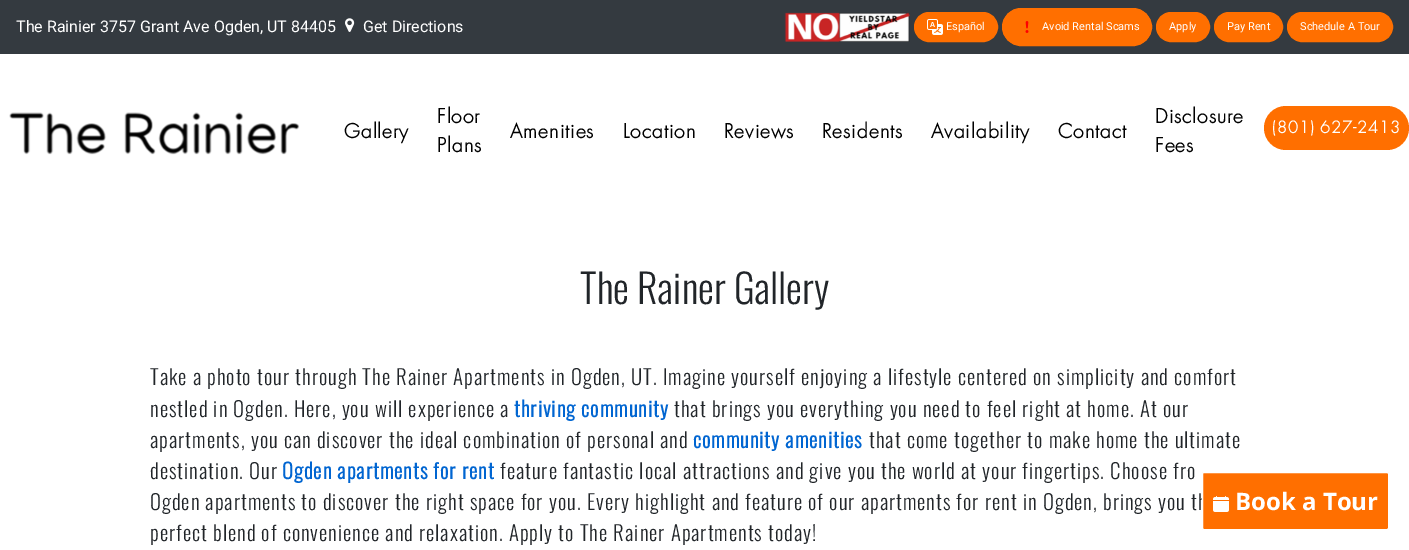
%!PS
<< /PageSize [1409 550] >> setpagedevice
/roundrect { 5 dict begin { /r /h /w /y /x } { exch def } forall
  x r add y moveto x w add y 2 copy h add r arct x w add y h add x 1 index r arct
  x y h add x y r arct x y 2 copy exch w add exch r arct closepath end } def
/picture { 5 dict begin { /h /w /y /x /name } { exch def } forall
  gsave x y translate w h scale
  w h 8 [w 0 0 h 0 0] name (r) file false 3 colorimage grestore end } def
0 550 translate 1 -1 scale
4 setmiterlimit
1 setgray
0 0 1409 550 rectfill
0.204 0.227 0.251 setrgbcolor
0 0 1409 54 rectfill
/Roboto-Regular [16 0 0 -16 0 0] selectfont
1 setgray
16 32 moveto (The Rainier 3757 Grant Ave Ogden, UT 84405) show
(img1.rgb) 345 18 10 14 picture
363 32 moveto (Get Directions) show
(img2.rgb) 784 12 126 30 picture
1 0.435 0 setrgbcolor
914.5 12.5 83 29 14.5 roundrect gsave fill grestore
stroke
(img3.rgb) 927 19 16 16 picture
/Roboto-Regular [11 0 0 -11 0 0] selectfont
1 setgray
946 30 moveto (Español) show
1 0.435 0 setrgbcolor
1002.5 8.5 149 37 18.5 roundrect gsave fill grestore
stroke
(img4.rgb) 1025 21 4 12 picture
1 setgray
1042 30 moveto (Avoid Rental Scams) show
1 0.435 0 setrgbcolor
1156.5 12.5 53 29 14.5 roundrect gsave fill grestore
stroke
1 setgray
1169 30 moveto (Apply) show
1 0.435 0 setrgbcolor
1214.5 12.5 68 29 14.5 roundrect gsave fill grestore
stroke
1 setgray
1227 30 moveto (Pay Rent) show
1 0.435 0 setrgbcolor
1287.5 12.5 105 29 14.5 roundrect gsave fill grestore
stroke
1 setgray
1300 30 moveto (Schedule A Tour) show
(img5.rgb) 9 112 291 43 picture
/Futura-Bold [19.25 0 0 -19.25 0 0] selectfont
0 setgray
344 138 moveto 1 0 (Gallery) ashow
437 123 moveto 1 0 (Floor) ashow
437 152 moveto 1 0 (Plans) ashow
510 138 moveto 1 0 (Amenities) ashow
623 138 moveto 1 0 (Location) ashow
724 138 moveto 1 0 (Reviews) ashow
822 138 moveto 1 0 (Residents) ashow
931 138 moveto 1 0 (Availability) ashow
1058 138 moveto 1 0 (Contact) ashow
1155 123 moveto 1 0 (Disclosure) ashow
1155 152 moveto 1 0 (Fees) ashow
1 0.435 0 setrgbcolor
1264 106 145 44 22 roundrect fill
/Futura-Bold [16 0 0 -16 0 0] selectfont
1 setgray
1272 133 moveto 1 0 (\(801\) 627-2413) ashow
/Oswald-Light [40 0 0 -40 0 0] selectfont
0.129 0.145 0.161 setrgbcolor
580 304 moveto (The Rainer Gallery) show
/Oswald-Light [20.8 0 0 -20.8 0 0] selectfont
150 385 moveto 1 0 (Take a photo tour through The Rainer Apartments in Ogden, UT. Imagine yourself enjoying a lifestyle centered on simplicity and comfort) ashow
150 417 moveto 1 0 (nestled in Ogden. Here, you will experience a) ashow
/Oswald-Bold [20.8 0 0 -20.8 0 0] selectfont
0 0.396 0.82 setrgbcolor
514 417 moveto 1 0 (thriving community) ashow
/Oswald-Light [20.8 0 0 -20.8 0 0] selectfont
0.129 0.145 0.161 setrgbcolor
674 417 moveto 1 0 (that brings you everything you need to feel right at home. At our) ashow
150 448 moveto 1 0 (apartments, you can discover the ideal combination of personal and) ashow
/Oswald-Bold [20.8 0 0 -20.8 0 0] selectfont
0 0.396 0.82 setrgbcolor
693 448 moveto 1 0 (community amenities) ashow
/Oswald-Light [20.8 0 0 -20.8 0 0] selectfont
0.129 0.145 0.161 setrgbcolor
869 448 moveto 1 0 (that come together to make home the ultimate) ashow
150 479 moveto 1 0 (destination. Our) ashow
/Oswald-Bold [20.8 0 0 -20.8 0 0] selectfont
0 0.396 0.82 setrgbcolor
282 479 moveto 1 0 (Ogden apartments for rent) ashow
/Oswald-Light [20.8 0 0 -20.8 0 0] selectfont
0.129 0.145 0.161 setrgbcolor
500 479 moveto 1 0 (feature fantastic local attractions and give you the world at your fingertips. Choose fro) ashow
150 510 moveto 1 0 (Ogden apartments to discover the right space for you. Every highlight and feature of our apartments for rent in Ogden, brings you th) ashow
150 541 moveto 1 0 (perfect blend of convenience and relaxation. Apply to The Rainer Apartments today!) ashow
1 0.435 0 setrgbcolor
1202.5 472.5 186 57 1.5 roundrect gsave fill grestore
1 setgray
stroke
(img6.rgb) 1213 496 16 16 picture
/OpenSans-Bold [24 0 0 -24 0 0] selectfont
1235 510 moveto (Book a Tour) show
showpage
